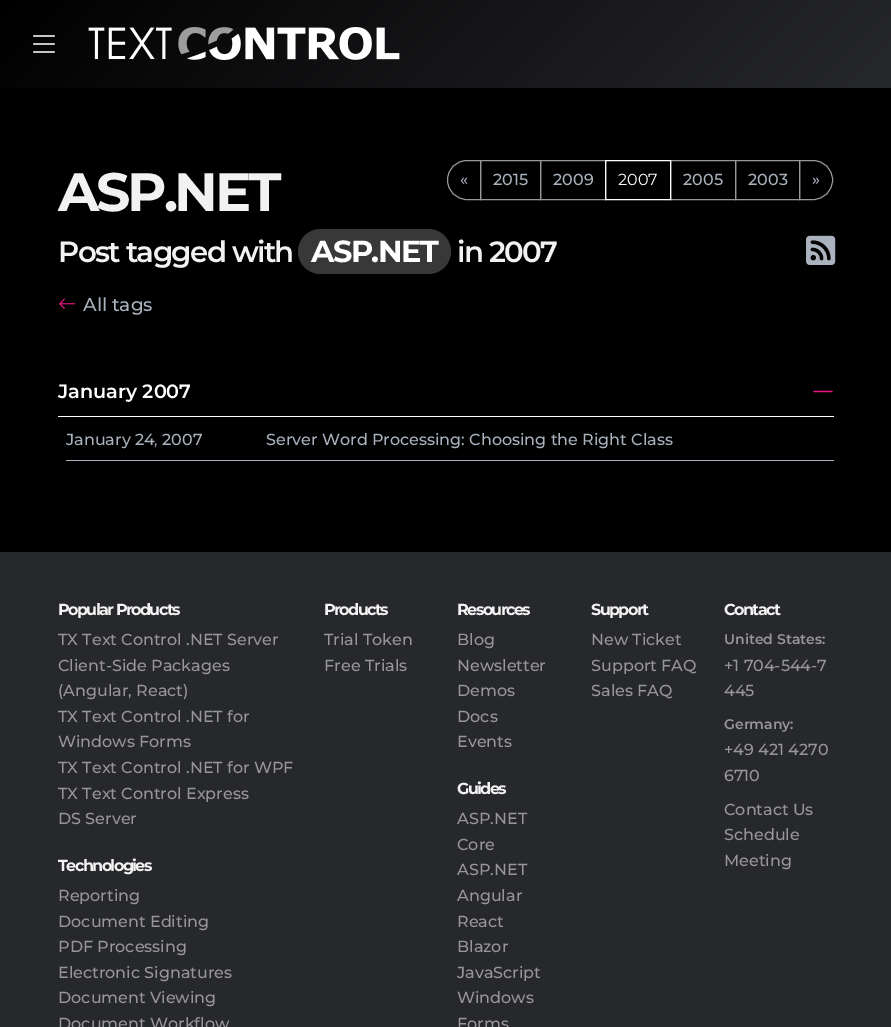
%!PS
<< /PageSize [891 1027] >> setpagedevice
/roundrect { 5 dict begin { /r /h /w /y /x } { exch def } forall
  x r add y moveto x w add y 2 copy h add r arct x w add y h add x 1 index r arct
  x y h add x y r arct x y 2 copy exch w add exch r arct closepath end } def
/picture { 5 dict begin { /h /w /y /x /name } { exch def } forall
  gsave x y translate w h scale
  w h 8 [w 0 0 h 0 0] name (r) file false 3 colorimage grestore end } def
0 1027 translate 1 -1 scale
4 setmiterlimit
0 setgray
0 0 891 1027 rectfill
gsave newpath 0 0 moveto 891 0 lineto 891 88 lineto 0 88 lineto closepath clip newpath
<< /ShadingType 2 /ColorSpace /DeviceRGB /Coords [201 -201 690 289] /Extend [true true] /Function << /FunctionType 2 /Domain [0 1] /C0 [0 0 0] /C1 [0.153 0.157 0.173] /N 1 >> >> shfill grestore
(img1.rgb) 88 27 312 33 picture
(img2.rgb) 33 35 22 18 picture
/Montserrat-Thin [54 0 0 -54 0 0] selectfont
0.949 setgray
58 211 moveto -3.25 0 (ASP.NET) ashow
0.592 0.588 0.596 setrgbcolor
newpath 467 160.5 moveto 480.5 160.5 lineto 480.5 199.5 lineto 467 199.5 lineto 456 199.5 447.5 191 447.5 180 curveto 447.5 169 456 160.5 467 160.5 curveto closepath stroke
/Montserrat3-Thin [16 0 0 -16 0 0] selectfont
0.663 0.698 0.741 setrgbcolor
460 185 moveto («) show
0.592 0.588 0.596 setrgbcolor
480.5 160.5 60 39 rectstroke
0.663 0.698 0.741 setrgbcolor
493 185 moveto (2015) show
0.592 0.588 0.596 setrgbcolor
540.5 160.5 65 39 rectstroke
0.663 0.698 0.741 setrgbcolor
553 185 moveto (2009) show
0.592 0.588 0.596 setrgbcolor
670.5 160.5 65 39 rectstroke
1 setgray
605.5 160.5 65 39 rectstroke
/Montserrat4-Thin [16 0 0 -16 0 0] selectfont
618 185 moveto (2007) show
/Montserrat3-Thin [16 0 0 -16 0 0] selectfont
0.663 0.698 0.741 setrgbcolor
683 185 moveto (2005) show
0.592 0.588 0.596 setrgbcolor
735.5 160.5 64 39 rectstroke
0.663 0.698 0.741 setrgbcolor
748 185 moveto (2003) show
0.592 0.588 0.596 setrgbcolor
newpath 799.5 160.5 moveto 813 160.5 lineto 824 160.5 832.5 169 832.5 180 curveto 832.5 191 824 199.5 813 199.5 curveto 799.5 199.5 lineto closepath stroke
0.663 0.698 0.741 setrgbcolor
812 185 moveto (») show
/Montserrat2-Thin [29.25 0 0 -29.25 0 0] selectfont
0.949 setgray
58 262 moveto -1.6 0 (Post tagged with) ashow
0.22 setgray
298 229 153 45 22.5 roundrect fill
/Montserrat-Thin [30.5 0 0 -30.5 0 0] selectfont
1 setgray
311 262 moveto -1.6 0 (ASP.NET) ashow
/Montserrat2-Thin [29.25 0 0 -29.25 0 0] selectfont
0.949 setgray
457 262 moveto -1.6 0 (in 2007) ashow
(img3.rgb) 806 235 30 30 picture
(img4.rgb) 59 298 17 11 picture
/Montserrat3-Thin [18.5 0 0 -18.5 0 0] selectfont
0.663 0.698 0.741 setrgbcolor
83 311 moveto (All tags) show
1 setgray
58 416 776 1 rectfill
/Montserrat2-Thin [19.25 0 0 -19.25 0 0] selectfont
58 398 moveto (January 2007) show
0.91 0.086 0.514 setrgbcolor
1.2 setlinewidth
1 setlinecap
newpath 832 391.5 moveto 814 391.5 lineto stroke
/Montserrat3-Thin [16 0 0 -16 0 0] selectfont
0.663 0.698 0.741 setrgbcolor
66 445 moveto (January 24) show
/Montserrat4-Thin [16 0 0 -16 0 0] selectfont
154 445 moveto (,) show
/Montserrat3-Thin [16 0 0 -16 0 0] selectfont
162 445 moveto (2007) show
66 460 768 1 rectfill
266 445 moveto (Server Word Processing: Choosing the Right Class) show
0.153 0.157 0.173 setrgbcolor
0 552 891 475 rectfill
/Montserrat-Thin [16 0 0 -16 0 0] selectfont
0.949 setgray
58 615 moveto -1.6 0 (Popular Products) ashow
/Montserrat3-Thin [16 0 0 -16 0 0] selectfont
0.592 0.588 0.596 setrgbcolor
58 645 moveto (TX Text Control .NET Server) show
58 671 moveto (Client-Side Packages) show
58 696 moveto (\(Angular, React\)) show
58 722 moveto (TX Text Control .NET for) show
58 747 moveto (Windows Forms) show
58 773 moveto (TX Text Control .NET for WPF) show
58 799 moveto (TX Text Control Express) show
58 824 moveto (DS Server) show
/Montserrat-Thin [16 0 0 -16 0 0] selectfont
0.949 setgray
58 871 moveto -1.6 0 (Technologies) ashow
/Montserrat3-Thin [16 0 0 -16 0 0] selectfont
0.592 0.588 0.596 setrgbcolor
58 901 moveto (Reporting) show
58 927 moveto (Document Editing) show
58 952 moveto (PDF Processing) show
58 978 moveto (Electronic Signatures) show
58 1003 moveto (Document Viewing) show
58 1029 moveto (Document Workflow) show
/Montserrat-Thin [16 0 0 -16 0 0] selectfont
0.949 setgray
324 615 moveto -1.6 0 (Products) ashow
/Montserrat3-Thin [16 0 0 -16 0 0] selectfont
0.592 0.588 0.596 setrgbcolor
324 645 moveto (Trial Token) show
324 671 moveto (Free Trials) show
/Montserrat-Thin [16 0 0 -16 0 0] selectfont
0.949 setgray
457 615 moveto -1.6 0 (Resources) ashow
/Montserrat3-Thin [16 0 0 -16 0 0] selectfont
0.592 0.588 0.596 setrgbcolor
457 645 moveto (Blog) show
457 671 moveto (Newsletter) show
457 696 moveto (Demos) show
457 722 moveto (Docs) show
457 747 moveto (Events) show
/Montserrat-Thin [16 0 0 -16 0 0] selectfont
0.949 setgray
457 794 moveto -1.6 0 (Guides) ashow
/Montserrat3-Thin [16 0 0 -16 0 0] selectfont
0.592 0.588 0.596 setrgbcolor
457 824 moveto (ASP.NET) show
457 850 moveto (Core) show
457 875 moveto (ASP.NET) show
457 901 moveto (Angular) show
457 927 moveto (React) show
457 952 moveto (Blazor) show
457 978 moveto (JavaScript) show
457 1003 moveto (Windows) show
457 1029 moveto (Forms) show
/Montserrat-Thin [16 0 0 -16 0 0] selectfont
0.949 setgray
591 615 moveto -1.6 0 (Support) ashow
/Montserrat3-Thin [16 0 0 -16 0 0] selectfont
0.592 0.588 0.596 setrgbcolor
591 645 moveto (New Ticket) show
591 671 moveto (Support FAQ) show
591 696 moveto (Sales FAQ) show
/Montserrat-Thin [16 0 0 -16 0 0] selectfont
0.949 setgray
724 615 moveto -1.6 0 (Contact) ashow
/Montserrat2-Thin [14 0 0 -14 0 0] selectfont
0.592 0.588 0.596 setrgbcolor
724 644 moveto (United States:) show
/Montserrat3-Thin [16 0 0 -16 0 0] selectfont
724 671 moveto (+1 704-544-7) show
724 696 moveto (445) show
/Montserrat2-Thin [14 0 0 -14 0 0] selectfont
724 729 moveto (Germany:) show
/Montserrat3-Thin [16 0 0 -16 0 0] selectfont
724 755 moveto (+49 421 4270) show
724 781 moveto (6710) show
724 815 moveto (Contact Us) show
724 840 moveto (Schedule) show
724 866 moveto (Meeting) show
showpage
